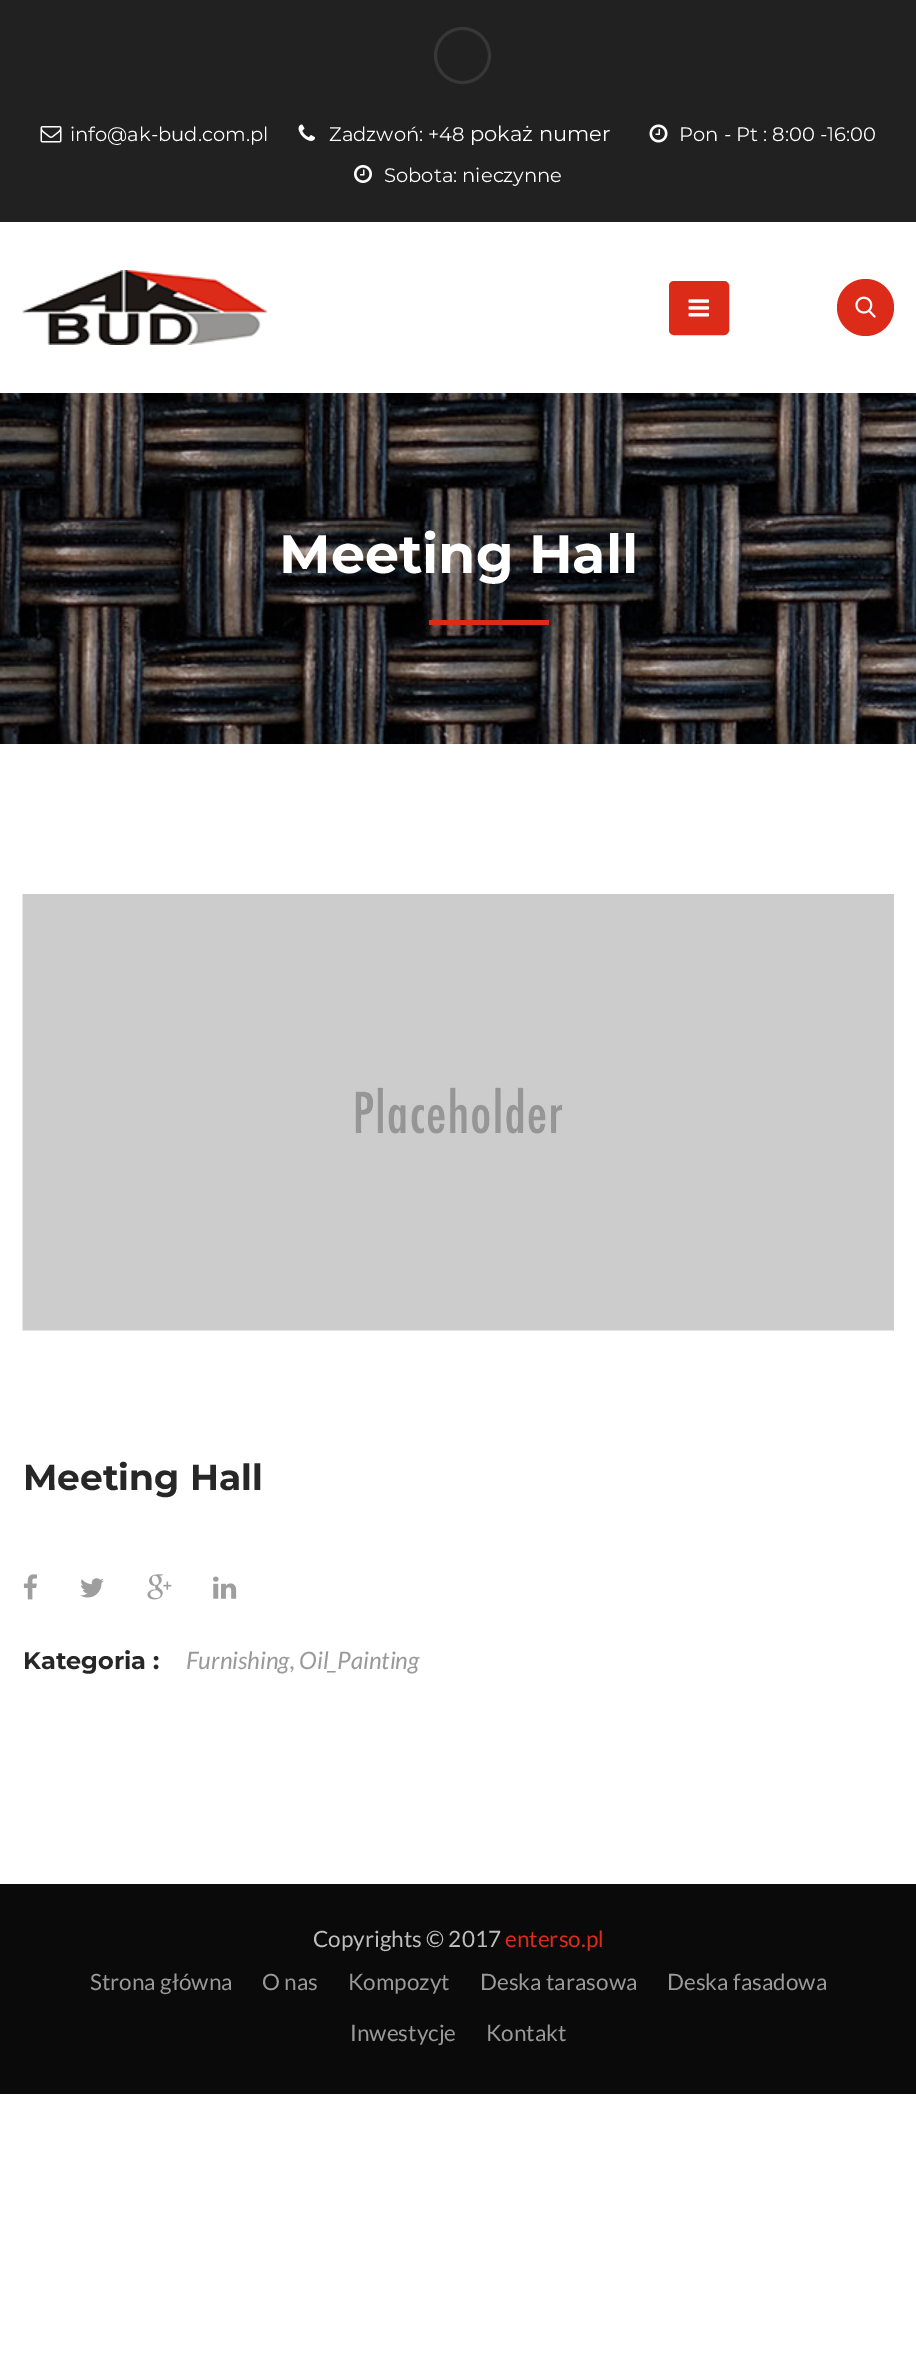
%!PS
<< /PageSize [916 2375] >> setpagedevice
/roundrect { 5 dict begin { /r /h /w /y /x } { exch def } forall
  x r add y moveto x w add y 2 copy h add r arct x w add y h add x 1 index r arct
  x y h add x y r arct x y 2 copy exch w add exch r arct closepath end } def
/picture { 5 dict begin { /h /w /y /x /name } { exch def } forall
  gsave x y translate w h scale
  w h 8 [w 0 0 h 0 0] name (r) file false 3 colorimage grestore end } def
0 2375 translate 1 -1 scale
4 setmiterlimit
1 setgray
0 0 916 2375 rectfill
0.129 setgray
0 0 916 222 rectfill
0.216 setgray
3 setlinewidth
newpath 462.5 55.5 27 0 360 arc closepath stroke
(img1.rgb) 40 126 22 17 picture
/Montserrat-Regular [19.5 0 0 -19.5 0 0] selectfont
1 setgray
70 141 moveto (info@ak-bud.com.pl) show
(img2.rgb) 298 124 17 17 picture
329 141 moveto (Zadzwoń: +48) show
/Montserrat-Regular [21 0 0 -21 0 0] selectfont
470 141 moveto (pokaż numer) show
(img3.rgb) 649 124 19 19 picture
/Montserrat-Regular [19.5 0 0 -19.5 0 0] selectfont
679 141 moveto (Pon - Pt : 8:00 -16:00) show
(img4.rgb) 354 165 18 18 picture
384 182 moveto (Sobota: nieczynne) show
(img5.rgb) 22 270 245 75 picture
0.863 0.169 0.098 setrgbcolor
670 282 58 52 4 roundrect gsave fill grestore
2 setlinewidth
stroke
(img6.rgb) 688 299 22 18 picture
newpath 865.5 307.5 28.5 0 360 arc closepath fill
(img7.rgb) 855 296 21 22 picture
(img8.rgb) 0 393 916 351 picture
/Montserrat-Bold [54 0 0 -54 0 0] selectfont
1 setgray
279 573 moveto (Meeting Hall) show
0.863 0.169 0.098 setrgbcolor
429 620 120 5 rectfill
(img9.rgb) 22 894 872 437 picture
/Montserrat-Bold [36 0 0 -36 0 0] selectfont
0.153 setgray
23 1490 moveto (Meeting Hall) show
(img10.rgb) 23 1574 14 26 picture
(img11.rgb) 80 1578 24 20 picture
(img12.rgb) 147 1574 25 26 picture
(img13.rgb) 213 1576 24 23 picture
/Montserrat-Bold [24 0 0 -24 0 0] selectfont
23 1669 moveto (Kategoria :) show
/Lato-Italic [24 0 0 -24 0 0] selectfont
0.6 setgray
186 1669 moveto (Furnishing, Oil_Painting) show
0.039 setgray
0 1884 916 210 rectfill
/Lato-Regular [22.5 0 0 -22.5 0 0] selectfont
0.745 setgray
313 1947 moveto (Copyrights © 2017) show
0.863 0.169 0.098 setrgbcolor
505 1947 moveto (enterso.pl) show
0.6 setgray
90 1990 moveto (Strona główna) show
262 1990 moveto (O nas) show
348 1990 moveto (Kompozyt) show
480 1990 moveto (Deska tarasowa) show
667 1990 moveto (Deska fasadowa) show
350 2041 moveto (Inwestycje) show
486 2041 moveto (Kontakt) show
showpage
